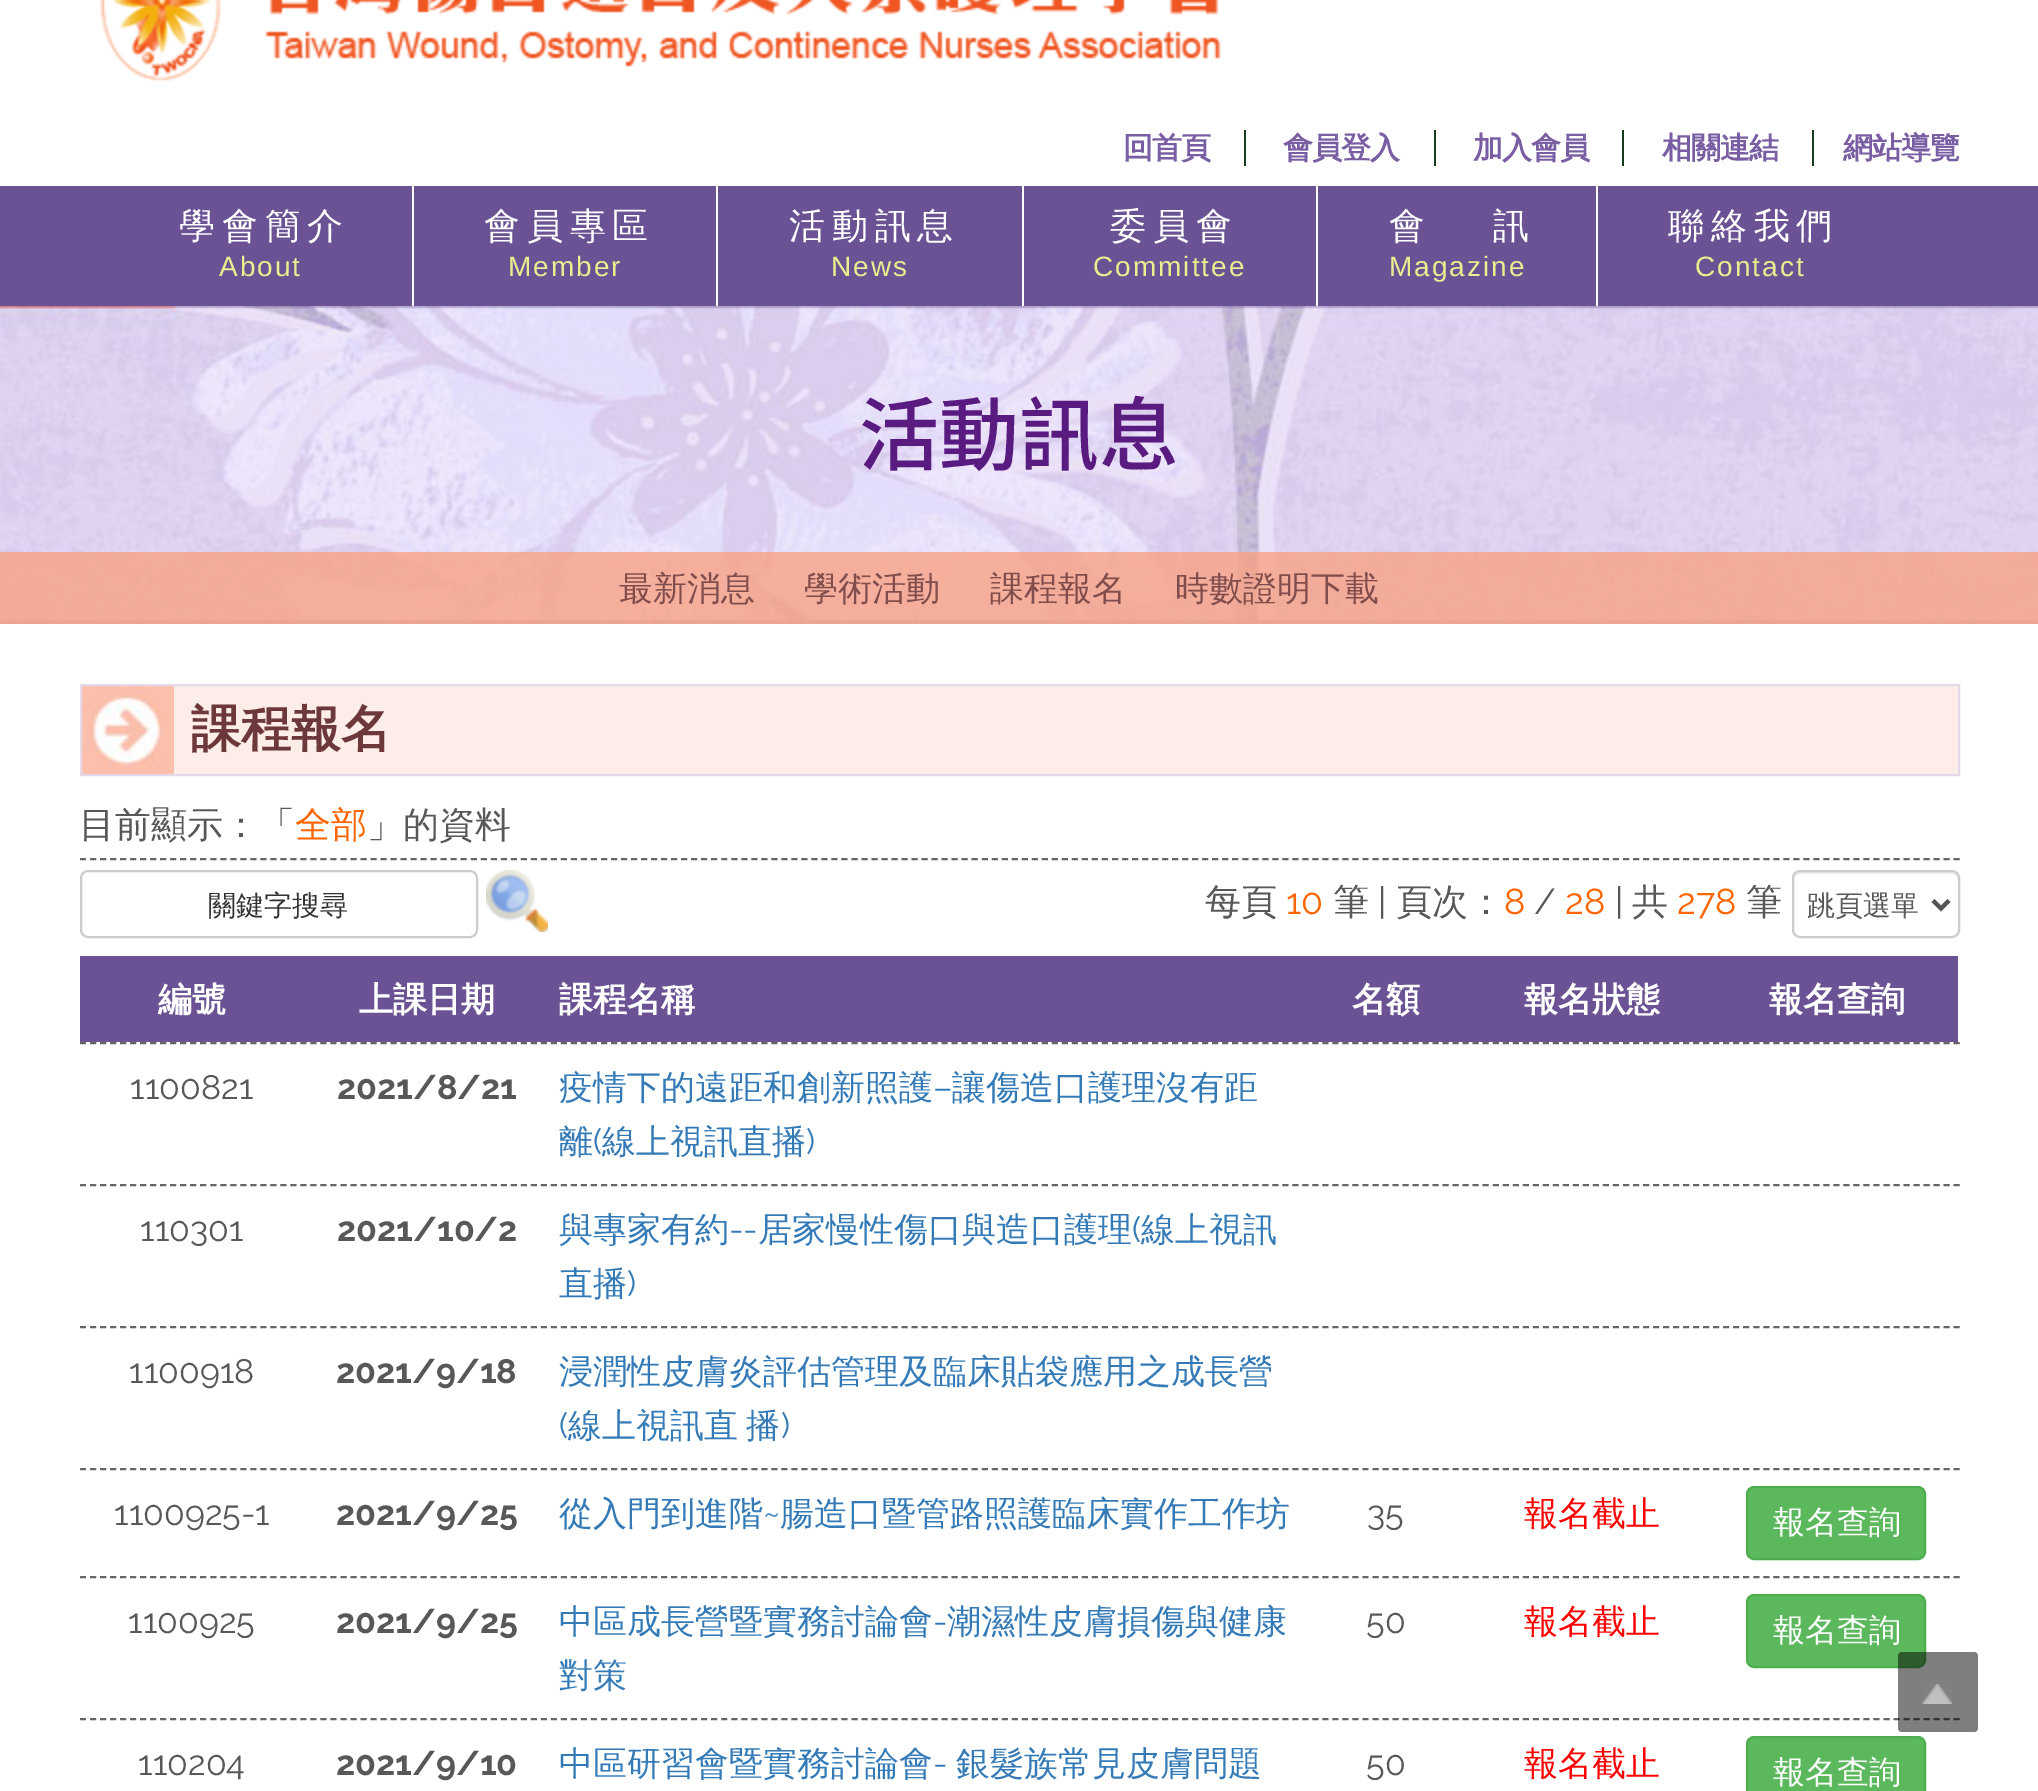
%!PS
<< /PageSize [2038 1791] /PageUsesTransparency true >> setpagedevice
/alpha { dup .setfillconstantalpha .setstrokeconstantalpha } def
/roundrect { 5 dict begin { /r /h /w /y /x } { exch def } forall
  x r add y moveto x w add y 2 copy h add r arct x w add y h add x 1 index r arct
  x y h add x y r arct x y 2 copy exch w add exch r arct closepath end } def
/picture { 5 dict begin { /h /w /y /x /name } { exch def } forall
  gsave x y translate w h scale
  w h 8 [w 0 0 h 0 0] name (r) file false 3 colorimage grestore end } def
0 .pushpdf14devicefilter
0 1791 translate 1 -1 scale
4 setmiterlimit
1 setgray
0 0 2038 1791 rectfill
(img1.rgb) 99 0 1122 82 picture
0.078 0.243 0.118 setrgbcolor
1244 130 2 36 rectfill
/WenQuanYiZenHei-Bold [30 0 0 -30 0 0] selectfont
0.478 0.369 0.639 setrgbcolor
1123 158 moveto -1 0 (回首頁) ashow
0.078 0.243 0.118 setrgbcolor
1434 130 2 36 rectfill
0.478 0.369 0.639 setrgbcolor
1283 158 moveto -1 0 (會員登入) ashow
0.078 0.243 0.118 setrgbcolor
1622 130 2 36 rectfill
0.478 0.369 0.639 setrgbcolor
1473 158 moveto -1 0 (加入會員) ashow
0.078 0.243 0.118 setrgbcolor
1812 130 2 36 rectfill
0.478 0.369 0.639 setrgbcolor
1662 158 moveto -1 0 (相關連結) ashow
1843 158 moveto -1 0 (網站導覽) ashow
0.42 0.322 0.58 setrgbcolor
0 186 2038 120 rectfill
1 setgray
412 186 2 120 rectfill
/WenQuanYiZenHei-Medium [36 0 0 -36 0 0] selectfont
179 238 moveto -1 0 32 -1.5 0 (學 會 簡 介) awidthshow
/LiberationSans-Regular [28 0 0 -28 0 0] selectfont
0.922 0.929 0.557 setrgbcolor
219 276 moveto 2 0 (About) ashow
1 setgray
716 186 2 120 rectfill
/WenQuanYiZenHei-Medium [36 0 0 -36 0 0] selectfont
484 238 moveto -1 0 32 -1.5 0 (會 員 專 區) awidthshow
/LiberationSans-Regular [28 0 0 -28 0 0] selectfont
0.922 0.929 0.557 setrgbcolor
508 276 moveto 2 0 (Member) ashow
1 setgray
1022 186 2 120 rectfill
/WenQuanYiZenHei-Medium [36 0 0 -36 0 0] selectfont
789 238 moveto -1 0 32 -1.5 0 (活 動 訊 息) awidthshow
/LiberationSans-Regular [28 0 0 -28 0 0] selectfont
0.922 0.929 0.557 setrgbcolor
831 276 moveto 2 0 (News) ashow
1 setgray
1316 186 2 120 rectfill
/WenQuanYiZenHei-Medium [36 0 0 -36 0 0] selectfont
1110 238 moveto -1 0 32 -1.5 0 (委 員 會) awidthshow
/LiberationSans-Regular [28 0 0 -28 0 0] selectfont
0.922 0.929 0.557 setrgbcolor
1093 276 moveto 2 0 (Committee) ashow
1 setgray
1596 186 2 120 rectfill
/WenQuanYiZenHei-Medium [36 0 0 -36 0 0] selectfont
1389 238 moveto -1.5 0 (會　　訊) ashow
/LiberationSans-Regular [28 0 0 -28 0 0] selectfont
0.922 0.929 0.557 setrgbcolor
1389 276 moveto 2 0 (Magazine) ashow
/WenQuanYiZenHei-Medium [36 0 0 -36 0 0] selectfont
1 setgray
1668 238 moveto -1 0 32 -1.5 0 (聯 絡 我 們) awidthshow
/LiberationSans-Regular [28 0 0 -28 0 0] selectfont
0.922 0.929 0.557 setrgbcolor
1695 276 moveto 2 0 (Contact) ashow
(img2.rgb) 0 306 2038 318 picture
/NotoSansTC-Medium [80 0 0 -80 0 0] selectfont
0.353 0.106 0.506 setrgbcolor
859 464 moveto (活動訊息) show
0.8 alpha
0.976 0.635 0.518 setrgbcolor
0 552 2038 72 rectfill
/WenQuanYiZenHei-Medium [34 0 0 -34 0 0] selectfont
1 alpha
0.502 0.298 0.298 setrgbcolor
619 600 moveto (最新消息) show
804 600 moveto (學術活動) show
990 600 moveto (課程報名) show
1175 600 moveto (時數證明下載) show
0.992 0.929 0.91 setrgbcolor
174 686 1784 88 rectfill
(img3.rgb) 82 686 92 88 picture
0.898 0.847 0.91 setrgbcolor
2 setlinewidth
81 685 1878 90 rectstroke
/WenQuanYiZenHei-Bold [50 0 0 -50 0 0] selectfont
0.427 0.22 0.224 setrgbcolor
191 746 moveto (課程報名) show
0.4 setgray
[6 4.02] 0 setdash
newpath 80 859 moveto 1960 859 lineto stroke
/WenQuanYiZenHei-Medium [36 0 0 -36 0 0] selectfont
0.349 0.341 0.341 setrgbcolor
79 837 moveto (目前顯示：「) show
1 0.4 0 setrgbcolor
295 837 moveto (全部) show
0.349 0.341 0.341 setrgbcolor
367 837 moveto (」的資料) show
0.8 setgray
[] 0 setdash
81 871 396 66 7 roundrect stroke
/WenQuanYiZenHei-Medium [28 0 0 -28 0 0] selectfont
0.2 setgray
208 915 moveto (關鍵字搜尋) show
(img4.rgb) 486 870 62 62 picture
/WenQuanYiZenHei-Medium [36 0 0 -36 0 0] selectfont
0.349 0.341 0.341 setrgbcolor
1205 914 moveto (每頁) show
/Raleway-Regular [36 0 0 -36 0 0] selectfont
1 0.4 0 setrgbcolor
1286 914 moveto (10) show
/WenQuanYiZenHei-Medium [36 0 0 -36 0 0] selectfont
0.349 0.341 0.341 setrgbcolor
1333 914 moveto (筆) show
/Raleway-Regular [36 0 0 -36 0 0] selectfont
1378 914 moveto (|) show
/WenQuanYiZenHei-Medium [36 0 0 -36 0 0] selectfont
1396 914 moveto (頁次：) show
/Raleway-Regular [36 0 0 -36 0 0] selectfont
1 0.4 0 setrgbcolor
1504 914 moveto (8) show
0.349 0.341 0.341 setrgbcolor
1534 914 moveto (/) show
1 0.4 0 setrgbcolor
1565 914 moveto (28) show
0.349 0.341 0.341 setrgbcolor
1615 914 moveto (|) show
/WenQuanYiZenHei-Medium [36 0 0 -36 0 0] selectfont
1632 914 moveto (共) show
/Raleway-Regular [36 0 0 -36 0 0] selectfont
1 0.4 0 setrgbcolor
1677 914 moveto (278) show
/WenQuanYiZenHei-Medium [36 0 0 -36 0 0] selectfont
0.349 0.341 0.341 setrgbcolor
1746 914 moveto (筆) show
0.925 setgray
newpath 1800 874 moveto 1952 874 lineto 1955 874 1958 877 1958 880 curveto 1958 878 lineto 1958 875 1955 872 1952 872 curveto 1800 872 lineto 1797 872 1794 875 1794 878 curveto 1794 880 lineto 1794 877 1797 874 1800 874 curveto closepath fill
0.8 setgray
1793 871 166 66 7 roundrect stroke
0.333 setgray
4 setlinewidth
newpath 1933 900.5 moveto 1941 908.5 lineto 1949 900.5 lineto stroke
/WenQuanYiZenHei-Medium [28 0 0 -28 0 0] selectfont
0.349 0.341 0.341 setrgbcolor
1807 915 moveto (跳頁選單) show
0.4 setgray
2 setlinewidth
[6 4.02] 0 setdash
newpath 80 1043 moveto 1960 1043 lineto stroke
0.42 0.322 0.58 setrgbcolor
80 956 1878 86 rectfill
/WenQuanYiZenHei-Bold [34 0 0 -34 0 0] selectfont
1 setgray
158 1011 moveto (編號) show
359 1011 moveto (上課日期) show
559 1011 moveto (課程名稱) show
1352 1011 moveto (名額) show
1524 1011 moveto (報名狀態) show
1769 1011 moveto (報名查詢) show
0.4 setgray
newpath 80 1185 moveto 1960 1185 lineto stroke
/Raleway-Regular [34 0 0 -34 0 0] selectfont
0.349 0.341 0.341 setrgbcolor
130 1099 moveto (1100821) show
/Raleway-Bold [34 0 0 -34 0 0] selectfont
337 1099 moveto (2021/8/21) show
/WenQuanYiZenHei-Medium [34 0 0 -34 0 0] selectfont
0.2 0.478 0.718 setrgbcolor
559 1099 moveto (疫情下的遠距和創新照護) show
/Raleway-Regular [34 0 0 -34 0 0] selectfont
933 1099 moveto (–) show
/WenQuanYiZenHei-Medium [34 0 0 -34 0 0] selectfont
952 1099 moveto (讓傷造口護理沒有距) show
559 1153 moveto (離) show
/Raleway-Regular [34 0 0 -34 0 0] selectfont
593 1153 moveto (\() show
/WenQuanYiZenHei-Medium [34 0 0 -34 0 0] selectfont
602 1153 moveto (線上視訊直播) show
/Raleway-Regular [34 0 0 -34 0 0] selectfont
806 1153 moveto (\)) show
0.4 setgray
newpath 80 1327 moveto 1960 1327 lineto stroke
0.349 0.341 0.341 setrgbcolor
140 1241 moveto (110301) show
/Raleway-Bold [34 0 0 -34 0 0] selectfont
337 1241 moveto (2021/10/2) show
/WenQuanYiZenHei-Medium [34 0 0 -34 0 0] selectfont
0.2 0.478 0.718 setrgbcolor
559 1241 moveto (與專家有約) show
/Raleway-Regular [34 0 0 -34 0 0] selectfont
729 1241 moveto (--) show
/WenQuanYiZenHei-Medium [34 0 0 -34 0 0] selectfont
758 1241 moveto (居家慢性傷口與造口護理) show
/Raleway-Regular [34 0 0 -34 0 0] selectfont
1132 1241 moveto (\() show
/WenQuanYiZenHei-Medium [34 0 0 -34 0 0] selectfont
1141 1241 moveto (線上視訊) show
559 1295 moveto (直播) show
/Raleway-Regular [34 0 0 -34 0 0] selectfont
627 1295 moveto (\)) show
0.4 setgray
newpath 80 1469 moveto 1960 1469 lineto stroke
0.349 0.341 0.341 setrgbcolor
129 1383 moveto (1100918) show
/Raleway-Bold [34 0 0 -34 0 0] selectfont
336 1383 moveto (2021/9/18) show
/WenQuanYiZenHei-Medium [34 0 0 -34 0 0] selectfont
0.2 0.478 0.718 setrgbcolor
559 1383 moveto (浸潤性皮膚炎評估管理及臨床貼袋應用之成長營) show
/Raleway-Regular [34 0 0 -34 0 0] selectfont
559 1437 moveto (\() show
/WenQuanYiZenHei-Medium [34 0 0 -34 0 0] selectfont
568 1437 moveto -2 0 32 (線上視訊直 播) widthshow
/Raleway-Regular [34 0 0 -34 0 0] selectfont
781 1437 moveto (\)) show
0.4 setgray
newpath 80 1577 moveto 1960 1577 lineto stroke
0.349 0.341 0.341 setrgbcolor
114 1525 moveto (1100925-1) show
/Raleway-Bold [34 0 0 -34 0 0] selectfont
336 1525 moveto (2021/9/25) show
/WenQuanYiZenHei-Medium [34 0 0 -34 0 0] selectfont
0.2 0.478 0.718 setrgbcolor
559 1525 moveto (從入門到進階) show
/Raleway-Regular [34 0 0 -34 0 0] selectfont
763 1525 moveto (~) show
/WenQuanYiZenHei-Medium [34 0 0 -34 0 0] selectfont
780 1525 moveto (腸造口暨管路照護臨床實作工作坊) show
/Raleway-Regular [34 0 0 -34 0 0] selectfont
0.349 0.341 0.341 setrgbcolor
1367 1525 moveto (35) show
/WenQuanYiZenHei-Medium [34 0 0 -34 0 0] selectfont
1 0 0 setrgbcolor
1524 1525 moveto (報名截止) show
0.361 0.722 0.361 setrgbcolor
1747 1487 178 72 7 roundrect gsave fill grestore
0.298 0.682 0.298 setrgbcolor
[] 0 setdash
stroke
/WenQuanYiZenHei-Medium [32 0 0 -32 0 0] selectfont
1 setgray
1773 1533 moveto (報名查詢) show
0.4 setgray
[6 4.02] 0 setdash
newpath 80 1719 moveto 1960 1719 lineto stroke
/Raleway-Regular [34 0 0 -34 0 0] selectfont
0.349 0.341 0.341 setrgbcolor
128 1633 moveto (1100925) show
/Raleway-Bold [34 0 0 -34 0 0] selectfont
336 1633 moveto (2021/9/25) show
/WenQuanYiZenHei-Medium [34 0 0 -34 0 0] selectfont
0.2 0.478 0.718 setrgbcolor
559 1633 moveto (中區成長營暨實務討論會) show
/Raleway-Regular [34 0 0 -34 0 0] selectfont
933 1633 moveto (-) show
/WenQuanYiZenHei-Medium [34 0 0 -34 0 0] selectfont
947 1633 moveto (潮濕性皮膚損傷與健康) show
559 1687 moveto (對策) show
/Raleway-Regular [34 0 0 -34 0 0] selectfont
0.349 0.341 0.341 setrgbcolor
1366 1633 moveto (50) show
/WenQuanYiZenHei-Medium [34 0 0 -34 0 0] selectfont
1 0 0 setrgbcolor
1524 1633 moveto (報名截止) show
0.361 0.722 0.361 setrgbcolor
1747 1595 178 72 7 roundrect gsave fill grestore
0.298 0.682 0.298 setrgbcolor
[] 0 setdash
stroke
/WenQuanYiZenHei-Medium [32 0 0 -32 0 0] selectfont
1 setgray
1773 1641 moveto (報名查詢) show
/Raleway-Regular [34 0 0 -34 0 0] selectfont
0.349 0.341 0.341 setrgbcolor
138 1775 moveto (110204) show
/Raleway-Bold [34 0 0 -34 0 0] selectfont
336 1775 moveto (2021/9/10) show
/WenQuanYiZenHei-Medium [34 0 0 -34 0 0] selectfont
0.2 0.478 0.718 setrgbcolor
559 1775 moveto (中區研習會暨實務討論會) show
/Raleway-Regular [34 0 0 -34 0 0] selectfont
933 1775 moveto (-) show
/WenQuanYiZenHei-Medium [34 0 0 -34 0 0] selectfont
956 1775 moveto (銀髮族常見皮膚問題) show
/Raleway-Regular [34 0 0 -34 0 0] selectfont
0.349 0.341 0.341 setrgbcolor
1366 1775 moveto (50) show
/WenQuanYiZenHei-Medium [34 0 0 -34 0 0] selectfont
1 0 0 setrgbcolor
1524 1775 moveto (報名截止) show
0.361 0.722 0.361 setrgbcolor
1747 1737 178 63 7 roundrect gsave fill grestore
0.298 0.682 0.298 setrgbcolor
stroke
/WenQuanYiZenHei-Medium [32 0 0 -32 0 0] selectfont
1 setgray
1773 1783 moveto (報名查詢) show
0.5 alpha
0 setgray
1898 1652 80 80 4 roundrect fill
1 alpha
(img5.rgb) 1922 1684 30 20 picture
.poppdf14devicefilter showpage
